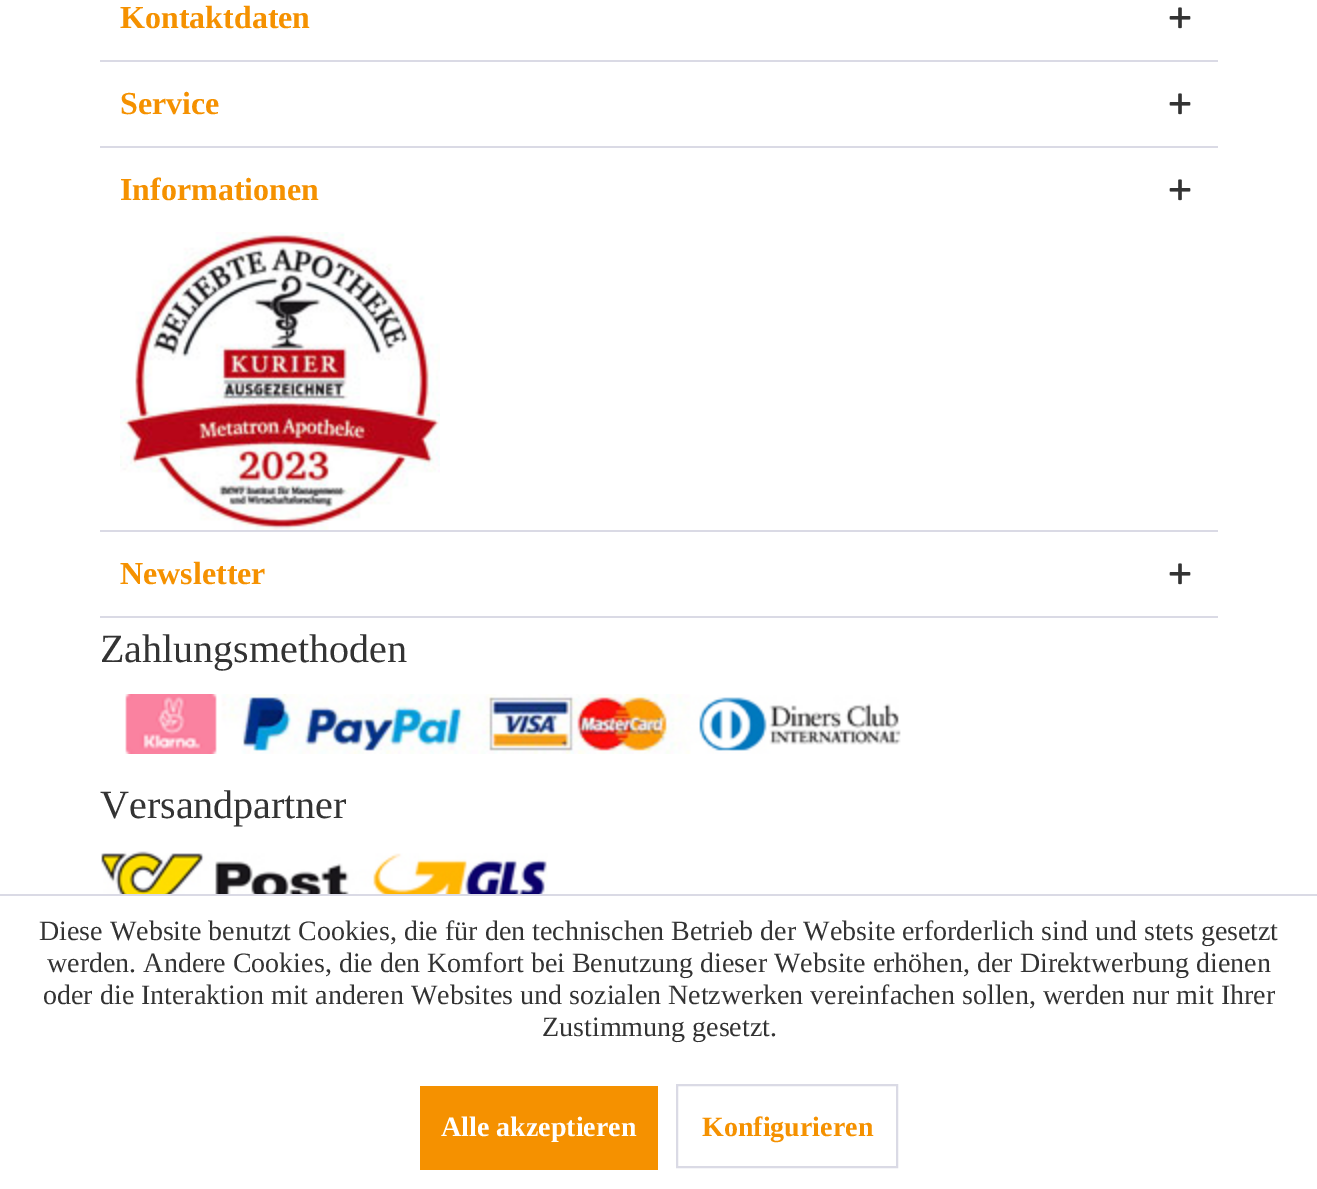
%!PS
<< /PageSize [1317 1189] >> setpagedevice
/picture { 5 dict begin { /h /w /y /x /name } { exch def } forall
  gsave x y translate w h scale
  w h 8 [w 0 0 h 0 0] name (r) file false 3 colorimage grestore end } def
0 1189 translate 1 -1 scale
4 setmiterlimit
1 setgray
0 0 1317 1189 rectfill
/LiberationSerif-Bold [32 0 0 -32 0 0] selectfont
0.961 0.569 0 setrgbcolor
120 28 moveto (Kontaktdaten) show
(img1.rgb) 1169 7 22 22 picture
0.855 0.855 0.898 setrgbcolor
100 60 1118 2 rectfill
0.961 0.569 0 setrgbcolor
120 114 moveto (Service) show
(img1.rgb) 1169 93 22 22 picture
0.855 0.855 0.898 setrgbcolor
100 146 1118 2 rectfill
0.961 0.569 0 setrgbcolor
120 200 moveto (Informationen) show
(img1.rgb) 1169 179 22 22 picture
(img2.rgb) 120 232 320 298 picture
0.855 0.855 0.898 setrgbcolor
100 530 1118 2 rectfill
100 616 1118 2 rectfill
0.961 0.569 0 setrgbcolor
120 584 moveto (Newsletter) show
(img1.rgb) 1169 563 22 22 picture
/LiberationSerif-Regular [40 0 0 -40 0 0] selectfont
0.2 setgray
100 662 moveto (Zahlungsmethoden) show
(img3.rgb) 125 694 776 60 picture
100 818 moveto (Versandpartner) show
(img4.rgb) 101 851 447 43 picture
0.855 0.855 0.898 setrgbcolor
0 894 1317 2 rectfill
/LiberationSerif-Regular [28 0 0 -28 0 0] selectfont
0.2 setgray
39 940 moveto (Diese Website benutzt Cookies, die für den technischen Betrieb der Website erforderlich sind und stets gesetzt) show
47 972 moveto (werden. Andere Cookies, die den Komfort bei Benutzung dieser Website erhöhen, der Direktwerbung dienen) show
43 1004 moveto (oder die Interaktion mit anderen Websites und sozialen Netzwerken vereinfachen sollen, werden nur mit Ihrer) show
542 1036 moveto (Zustimmung gesetzt.) show
0.961 0.569 0 setrgbcolor
420 1086 238 84 rectfill
/LiberationSerif-Bold [28 0 0 -28 0 0] selectfont
1 setgray
441 1136 moveto (Alle akzeptieren) show
0.855 0.855 0.898 setrgbcolor
2 setlinewidth
677 1085 220 82 rectstroke
0.961 0.569 0 setrgbcolor
702 1136 moveto (Konfigurieren) show
showpage
